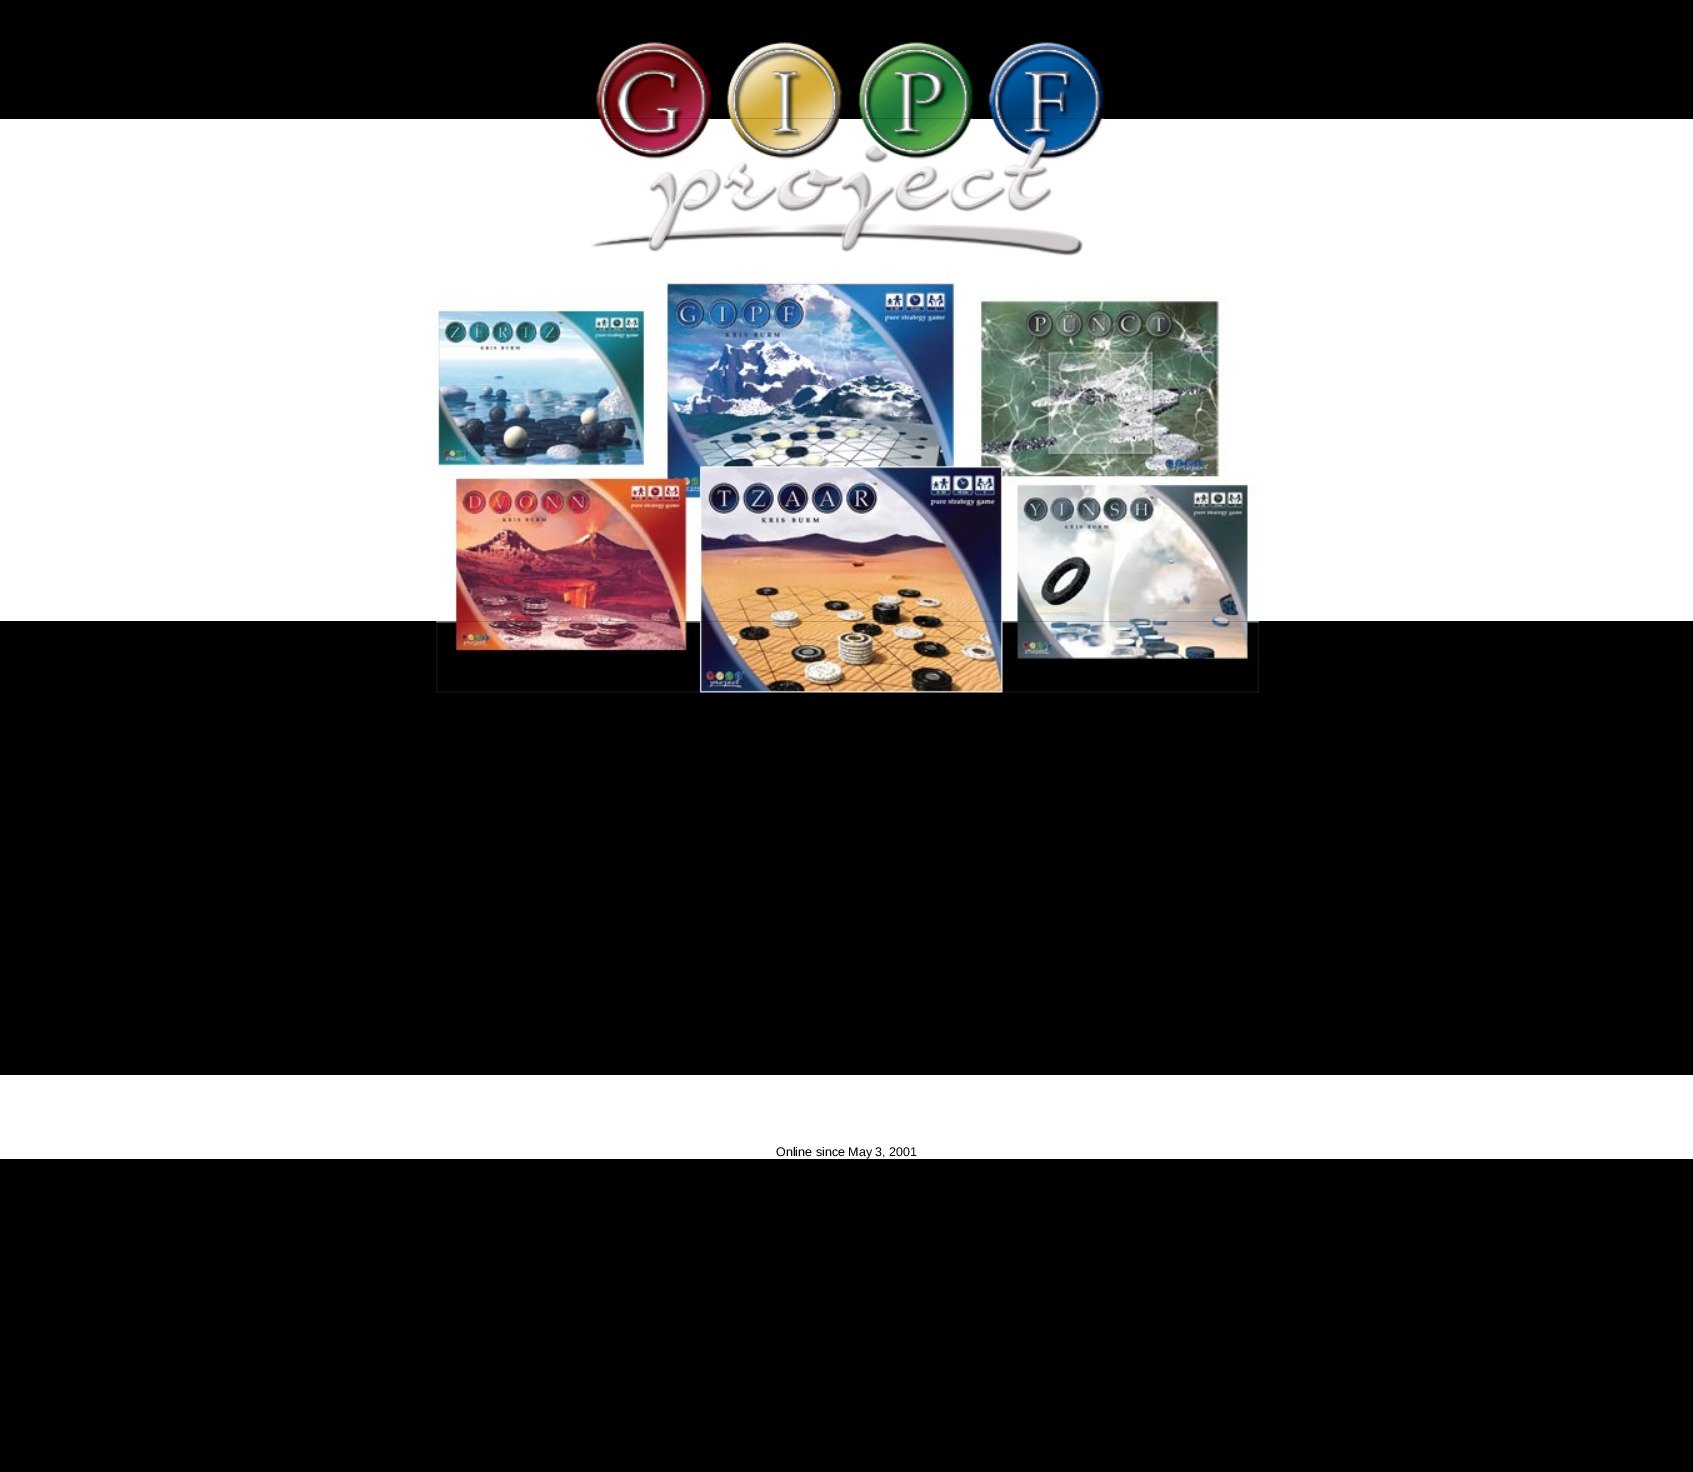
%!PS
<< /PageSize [1693 1472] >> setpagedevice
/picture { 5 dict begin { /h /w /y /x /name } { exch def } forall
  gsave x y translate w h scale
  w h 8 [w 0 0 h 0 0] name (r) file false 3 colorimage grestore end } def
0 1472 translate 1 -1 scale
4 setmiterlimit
0 setgray
0 0 1693 1472 rectfill
(img1.rgb) 596 42 509 77 picture
1 setgray
0 119 1693 502 rectfill
(img2.rgb) 590 118 514 138 picture
(img3.rgb) 436 275 823 347 picture
(img4.rgb) 436 621 823 72 picture
0 1075 1693 84 rectfill
/LiberationSans-Regular [12.5 0 0 -12.5 0 0] selectfont
0 setgray
776 1156 moveto (Online since May 3, 2001) show
showpage
